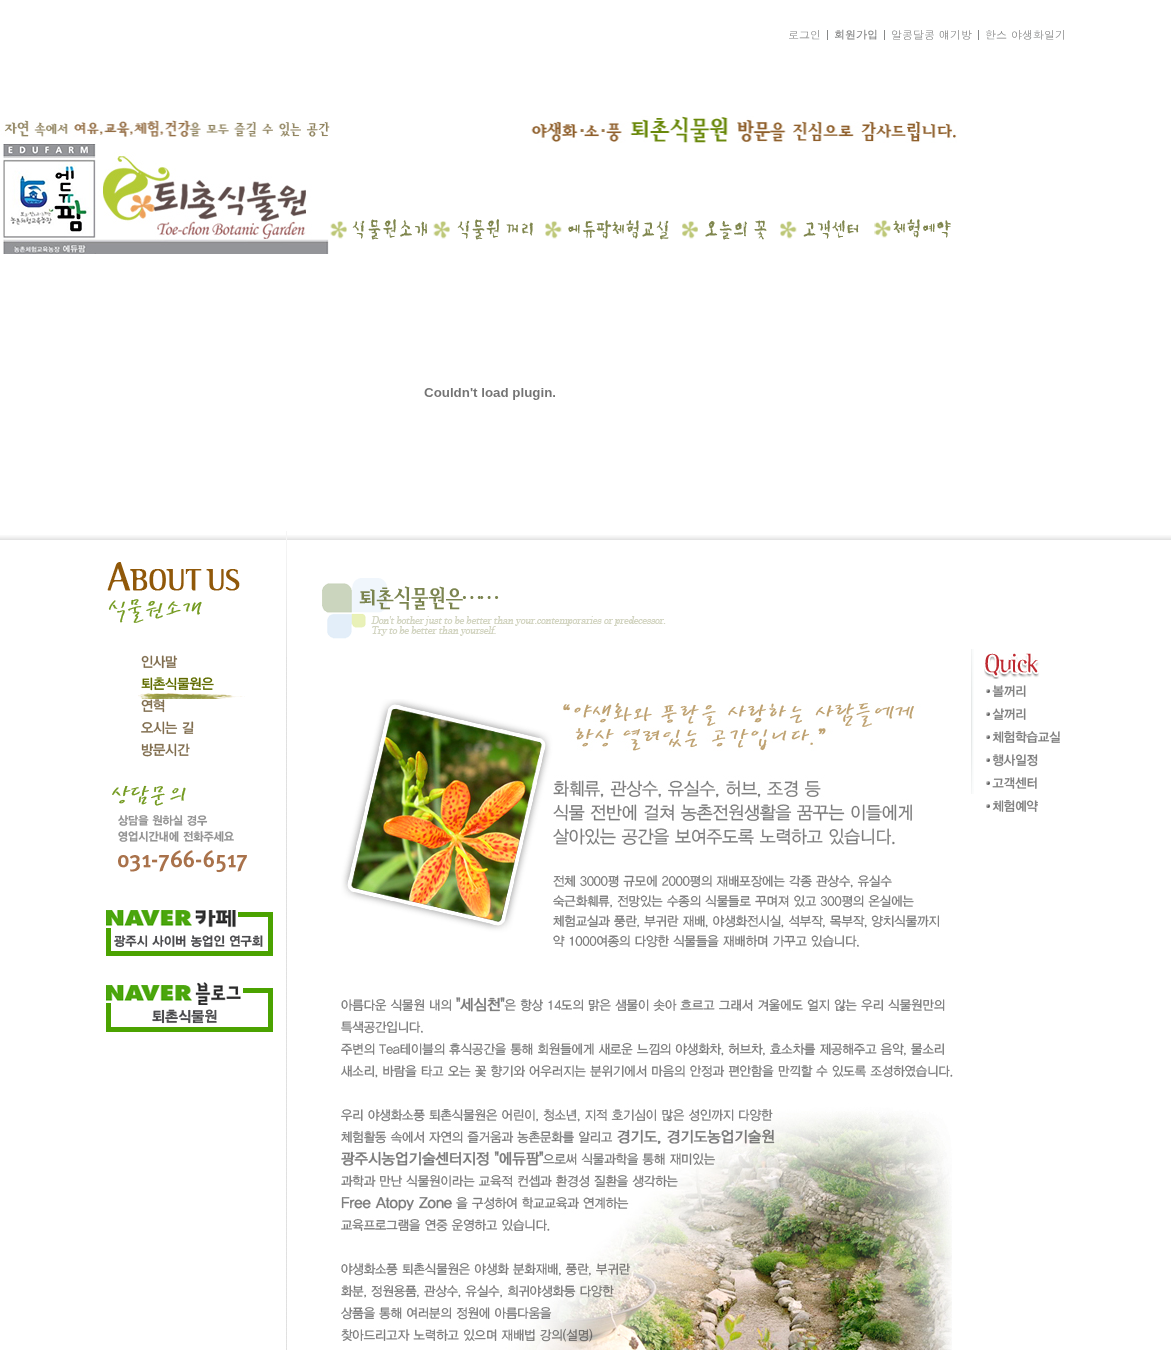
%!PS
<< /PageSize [1171 1350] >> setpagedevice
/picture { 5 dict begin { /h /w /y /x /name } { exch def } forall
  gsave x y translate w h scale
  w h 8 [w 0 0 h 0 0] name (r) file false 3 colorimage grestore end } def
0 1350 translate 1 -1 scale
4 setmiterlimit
1 setgray
0 0 1171 1350 rectfill
0.525 0.529 0.529 setrgbcolor
827 30 1 10 rectfill
/Dotum-Regular [11 0 0 -11 0 0] selectfont
788 39 moveto (로그인) show
884 30 1 10 rectfill
/Dotum-Bold [11 0 0 -11 0 0] selectfont
834 39 moveto (회원가입) show
978 30 1 10 rectfill
/Dotum-Regular [11 0 0 -11 0 0] selectfont
891 39 moveto (알콩달콩 얘기방) show
985 39 moveto (한스 야생화일기) show
(img1.rgb) 0 120 330 17 picture
(img2.rgb) 531 116 426 27 picture
(img3.rgb) 3 144 326 110 picture
(img4.rgb) 330 219 621 21 picture
(img5.rgb) 424 388 131 12 picture
(img6.rgb) 0 535 1171 5 picture
(img7.rgb) 286 657 1 693 picture
(img8.rgb) 286 531 1 126 picture
(img9.rgb) 107 562 133 61 picture
(img10.rgb) 141 655 37 14 picture
(img11.rgb) 138 677 107 26 picture
(img12.rgb) 141 699 82 14 picture
(img13.rgb) 141 721 53 14 picture
(img14.rgb) 141 743 49 14 picture
(img15.rgb) 112 785 135 88 picture
(img16.rgb) 106 910 167 46 picture
(img17.rgb) 106 982 167 50 picture
(img18.rgb) 322 578 344 61 picture
(img19.rgb) 341 699 612 651 picture
(img20.rgb) 971 649 3 145 picture
(img21.rgb) 984 653 56 26 picture
(img22.rgb) 986 685 40 12 picture
(img23.rgb) 986 708 40 12 picture
(img24.rgb) 986 731 74 12 picture
(img25.rgb) 986 754 52 13 picture
(img26.rgb) 986 777 51 12 picture
(img27.rgb) 986 800 52 12 picture
showpage
